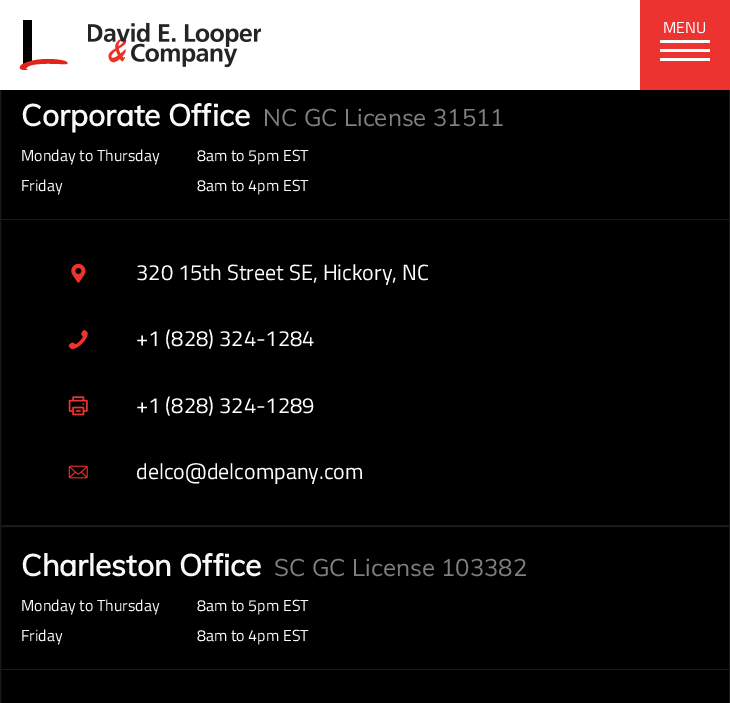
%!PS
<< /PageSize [730 703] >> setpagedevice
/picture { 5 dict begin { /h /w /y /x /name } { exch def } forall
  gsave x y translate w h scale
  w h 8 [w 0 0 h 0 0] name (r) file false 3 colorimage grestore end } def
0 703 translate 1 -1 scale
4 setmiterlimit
0 setgray
0 0 730 703 rectfill
0.102 setgray
0.5 76.5 729 449 rectstroke
1 setgray
0 0 640 90 rectfill
0 setgray
23 20 9 44 rectfill
0.882 0.145 0.106 setrgbcolor
newpath 26 69 moveto 32 69 19 72 20 67 curveto 20 66 22 64 23 64 curveto 33 58 55 58 65 61 curveto 67 62 lineto 69 65 64 64 60 64 curveto 55 64 27 62 26 69 curveto closepath fill
(img1.rgb) 88 22 173 46 picture
0.925 0.2 0.188 setrgbcolor
640 0 90 90 rectfill
/TitilliumWeb-Regular [16 0 0 -16 0 0] selectfont
1 setgray
663 33 moveto (MENU) show
660 40 50 3 rectfill
660 49 50 3 rectfill
660 58 50 3 rectfill
0.102 setgray
1 219 728 1 rectfill
/Muli-Bold [30 0 0 -30 0 0] selectfont
0.973 0.976 0.98 setrgbcolor
21 126 moveto (Corporate Office) show
/Muli-Regular [24 0 0 -24 0 0] selectfont
0.502 setgray
263 126 moveto (NC GC License 31511) show
/TitilliumWeb-Regular [16 0 0 -16 0 0] selectfont
0.973 0.976 0.98 setrgbcolor
21 161 moveto (Monday to Thursday) show
21 191 moveto (Friday) show
197 161 moveto (8am to 5pm EST) show
197 191 moveto (8am to 4pm EST) show
(img2.rgb) 71 263 15 20 picture
/TitilliumWeb-Regular [22 0 0 -22 0 0] selectfont
1 setgray
136 280 moveto (320 15th Street SE, Hickory, NC) show
(img3.rgb) 68 330 20 20 picture
136 346 moveto (+1 \(828\) 324-1284) show
(img4.rgb) 68 396 20 20 picture
136 413 moveto (+1 \(828\) 324-1289) show
(img5.rgb) 68 465 20 14 picture
136 479 moveto (delco@delcompany.com) show
0.102 setgray
0.5 526.5 729 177 rectstroke
1 669 728 1 rectfill
/Muli-Bold [30 0 0 -30 0 0] selectfont
0.973 0.976 0.98 setrgbcolor
21 576 moveto (Charleston Office) show
/Muli-Regular [24 0 0 -24 0 0] selectfont
0.502 setgray
274 576 moveto (SC GC License 103382) show
/TitilliumWeb-Regular [16 0 0 -16 0 0] selectfont
0.973 0.976 0.98 setrgbcolor
21 611 moveto (Monday to Thursday) show
21 641 moveto (Friday) show
197 611 moveto (8am to 5pm EST) show
197 641 moveto (8am to 4pm EST) show
showpage
